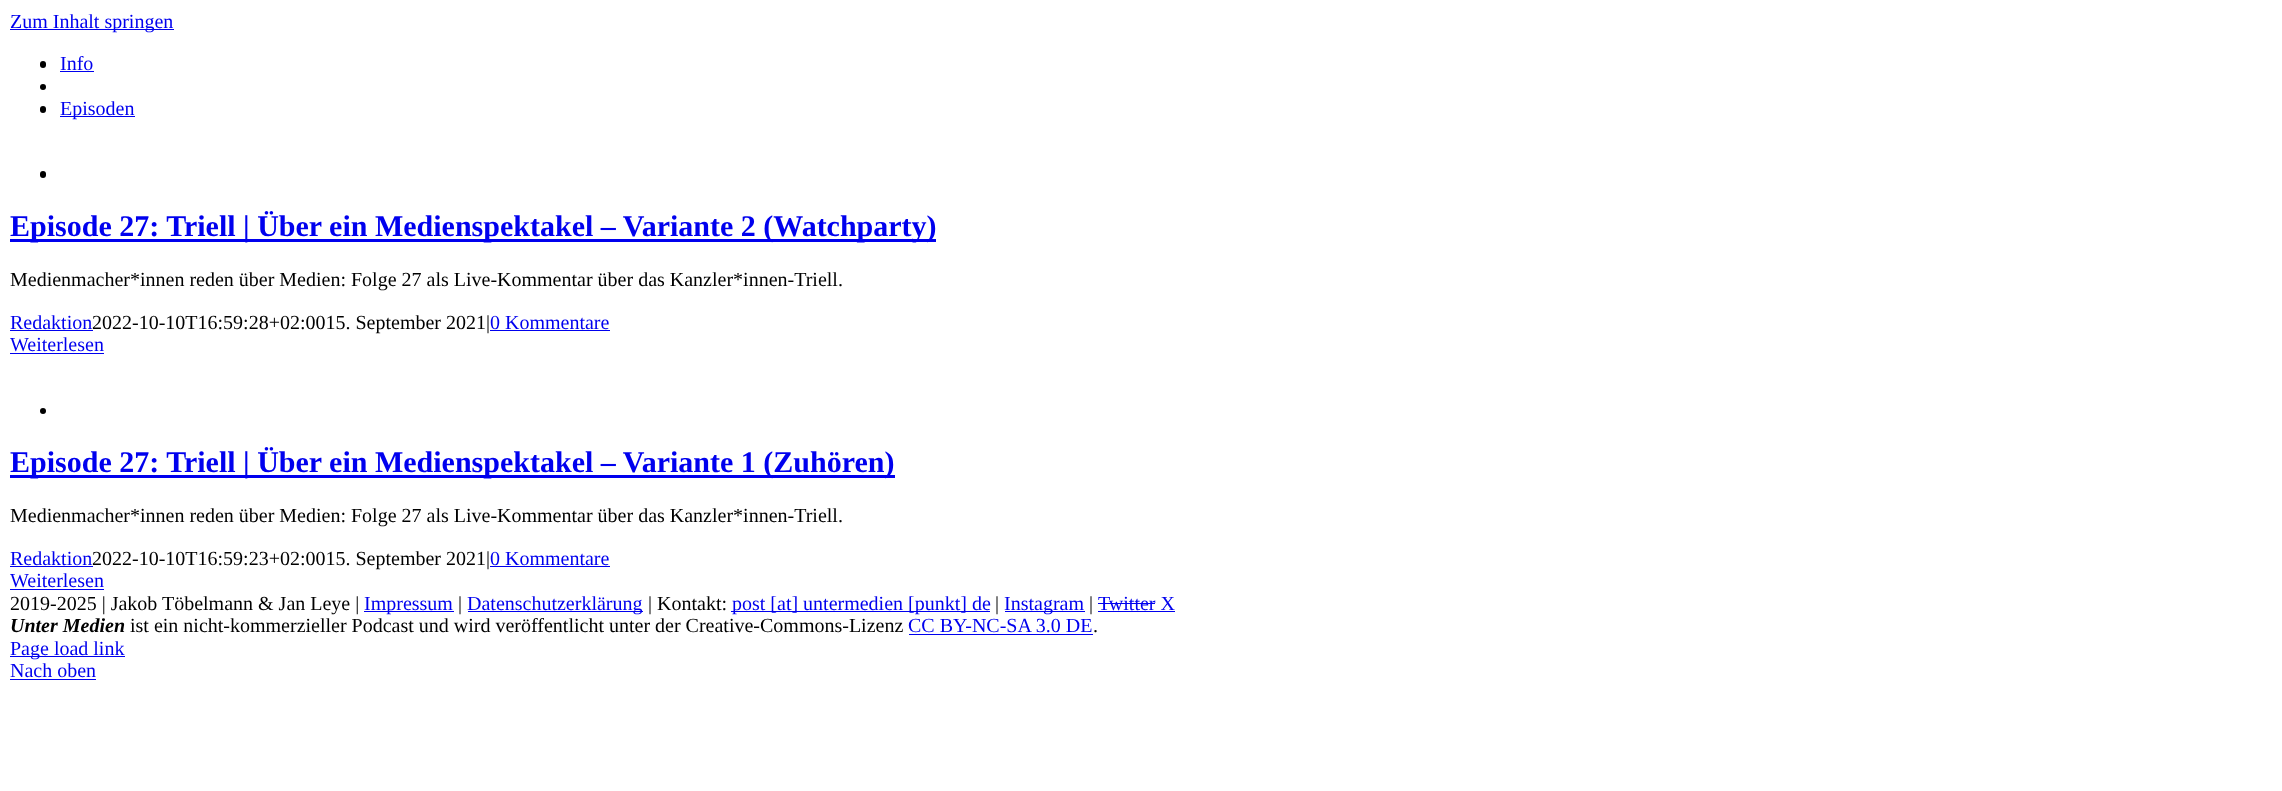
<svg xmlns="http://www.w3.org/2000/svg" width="2282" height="791">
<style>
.a{font:20px Liberation Serif;fill:#00e}
.b{font:bold 30px Liberation Serif;fill:#00e}
.c{font:20px Liberation Serif;fill:#000}
.d{font:italic bold 20px Liberation Serif;fill:#000}
</style>
<rect width="100%" height="100%" fill="#fff"/>
<path fill="#00e" d="M10 29h164v1H10z"/>
<rect fill="#000" x="40" y="61" width="6" height="7" rx="3"/>
<path fill="#00e" d="M60 71h34v1H60z"/>
<circle fill="#000" cx="43" cy="87" r="3"/>
<rect fill="#000" x="40" y="106" width="6" height="7" rx="3"/>
<path fill="#00e" d="M60 116h75v1H60z"/>
<rect fill="#000" x="40" y="171" width="6" height="7" rx="3"/>
<path fill="#00e" d="M10 239h926v3H10z"/>
<path fill="#00e" d="M10 330h83v1H10z"/>
<path fill="#00e" d="M490 330h120v1H490z"/>
<path fill="#00e" d="M10 353h94v1H10z"/>
<circle fill="#000" cx="43" cy="411" r="3"/>
<path fill="#00e" d="M10 475h885v3H10z"/>
<path fill="#00e" d="M10 566h83v1H10z"/>
<path fill="#00e" d="M490 566h120v1H490z"/>
<path fill="#00e" d="M10 589h94v1H10z"/>
<path fill="#00e" d="M364 611h90v1H364z"/>
<path fill="#00e" d="M468 611h175v1H468z"/>
<path fill="#00e" d="M731 611h259v1H731z"/>
<path fill="#00e" d="M1005 611h80v1H1005z"/>
<path fill="#00e" d="M1098 611h77v1H1098z"/>
<path fill="#00e" d="M1098 603h57v1H1098z"/>
<path fill="#00e" d="M909 634h184v1H909z"/>
<path fill="#00e" d="M10 656h115v1H10z"/>
<path fill="#00e" d="M10 679h86v1H10z"/>
<text class="a" x="10" y="28">Zum Inhalt springen</text>
<text class="a" x="60" y="70">Info</text>
<text class="a" x="60" y="115">Episoden</text>
<text class="b" x="10" y="236">Episode 27: Triell | Über ein Medienspektakel – Variante 2 (Watchparty)</text>
<text class="c" x="10" y="286">Medienmacher*innen reden über Medien: Folge 27 als Live-Kommentar über das Kanzler*innen-Triell.</text>
<text class="a" x="10" y="329">Redaktion</text>
<text class="c" x="92" y="329">2022-10-10T16:59:28+02:0015. September 2021|</text>
<text class="a" x="490" y="329">0 Kommentare</text>
<text class="a" x="10" y="351">Weiterlesen</text>
<text class="b" x="10" y="472">Episode 27: Triell | Über ein Medienspektakel – Variante 1 (Zuhören)</text>
<text class="c" x="10" y="522">Medienmacher*innen reden über Medien: Folge 27 als Live-Kommentar über das Kanzler*innen-Triell.</text>
<text class="a" x="10" y="565">Redaktion</text>
<text class="c" x="92" y="565">2022-10-10T16:59:23+02:0015. September 2021|</text>
<text class="a" x="490" y="565">0 Kommentare</text>
<text class="a" x="10" y="587">Weiterlesen</text>
<text class="c" x="10" y="610">2019-2025 | Jakob Töbelmann &amp; Jan Leye |</text>
<text class="a" x="364" y="610">Impressum</text>
<text class="c" x="458" y="610">|</text>
<text class="a" x="467" y="610">Datenschutzerklärung</text>
<text class="c" x="648" y="610">| Kontakt:</text>
<text class="a" x="732" y="610">post [at] untermedien [punkt] de</text>
<text class="c" x="995" y="610">|</text>
<text class="a" x="1004" y="610">Instagram</text>
<text class="c" x="1089" y="610">|</text>
<text class="a" x="1098" y="610">Twitter X</text>
<text class="d" x="10" y="632">Unter Medien</text>
<text class="c" x="130" y="632">ist ein nicht-kommerzieller Podcast und wird veröffentlicht unter der Creative-Commons-Lizenz</text>
<text class="a" x="908" y="632">CC BY-NC-SA 3.0 DE</text>
<text class="c" x="1093" y="632">.</text>
<text class="a" x="10" y="655">Page load link</text>
<text class="a" x="10" y="677">Nach oben</text>
</svg>
